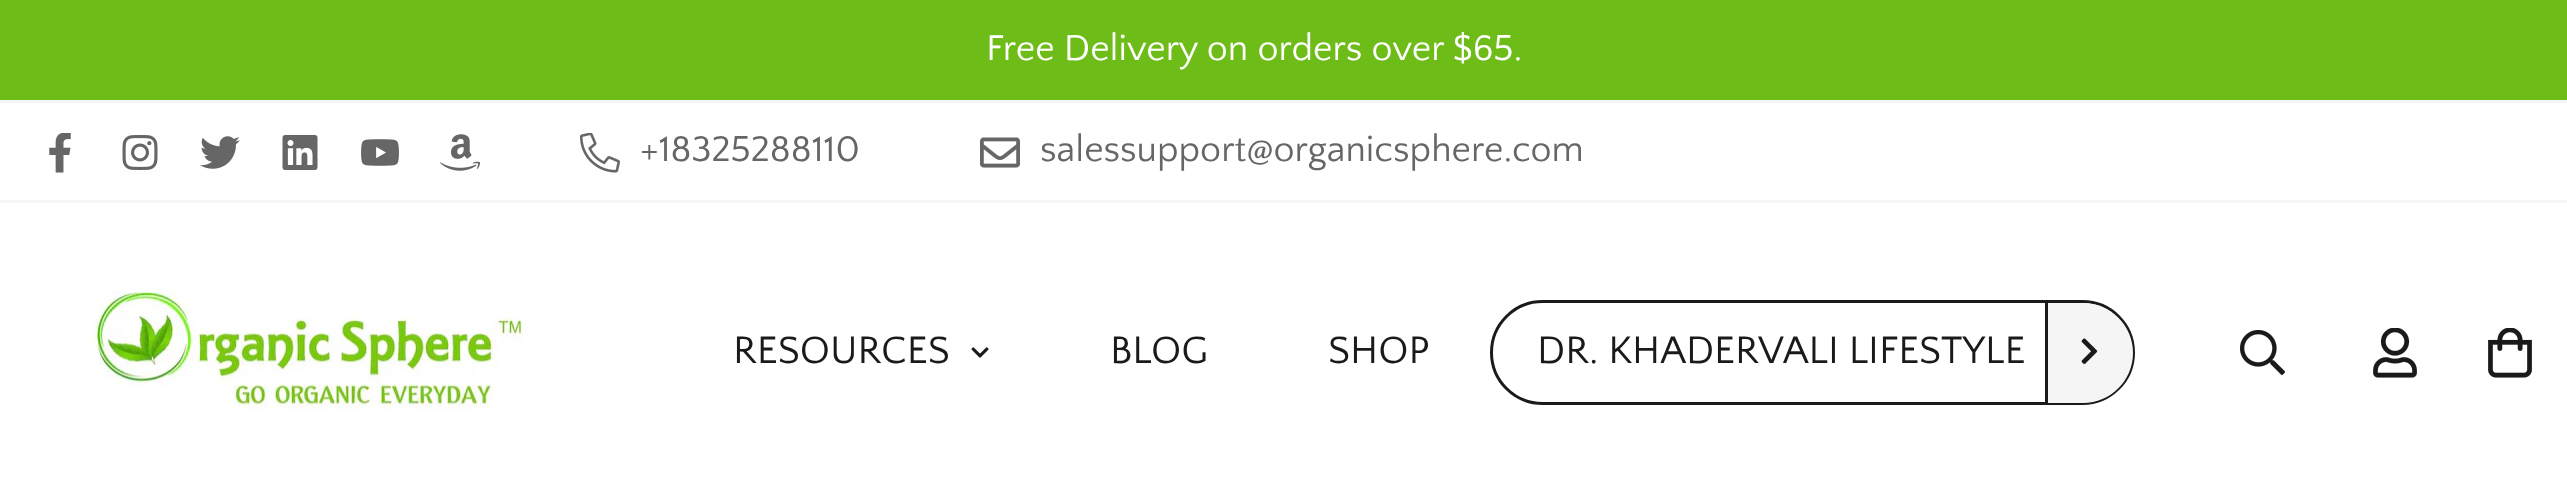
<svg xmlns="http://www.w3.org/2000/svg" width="2567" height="490">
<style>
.a{font:37.5px Quattrocento Sans;fill:#fff}
.b{font:37.5px Quattrocento Sans;fill:#666}
.c{font:40px Quattrocento Sans;fill:#1a1a1a}
</style>
<rect width="100%" height="100%" fill="#fff"/>
<path fill="#6ebc18" d="M0 0h2567v100H0z"/>
<path fill="#f5f5f5" d="M0 100h2567v3H0z"/>
<path fill="#f5f5f5" d="M0 200h2567v3H0z"/>
<image href="1.png" x="49" y="133" width="22" height="40"/>
<image href="2.png" x="122" y="135" width="36" height="35"/>
<image href="3.png" x="200" y="136" width="40" height="33"/>
<image href="4.png" x="282" y="135" width="36" height="35"/>
<image href="5.png" x="361" y="139" width="38" height="27"/>
<image href="6.png" x="440" y="134" width="40" height="37"/>
<image href="7.png" x="580" y="133" width="40" height="40"/>
<image href="8.png" x="980" y="137" width="40" height="31"/>
<image href="9.png" x="92" y="289" width="432" height="122"/>
<image href="10.png" x="971" y="347" width="18" height="11"/>
<rect fill="none" stroke="#1a1a1a" stroke-width="3" x="1491.5" y="301.5" width="642" height="102" rx="51"/>
<path fill="#f5f5f5" d="M2048 303h35c27.5 0 50 22.5 50 50c0 27.5-22.5 50-50 50h-35z"/>
<path fill="#1a1a1a" d="M2045 303h3v100H2045z"/>
<image href="11.png" x="2081" y="338" width="17" height="26"/>
<image href="12.png" x="2240" y="330" width="45" height="45"/>
<image href="13.png" x="2373" y="328" width="44" height="50"/>
<image href="14.png" x="2488" y="328" width="44" height="50"/>
<text class="a" x="986" y="60">Free Delivery on orders over $65.</text>
<text class="b" x="640" y="161">+18325288110</text>
<text class="b" x="1040" y="161">salessupport@organicsphere.com</text>
<text class="c" x="733" y="363">RESOURCES</text>
<text class="c" x="1110" y="363">BLOG</text>
<text class="c" x="1328" y="363">SHOP</text>
<text class="c" x="1537" y="363">DR. KHADERVALI LIFESTYLE</text>
</svg>
